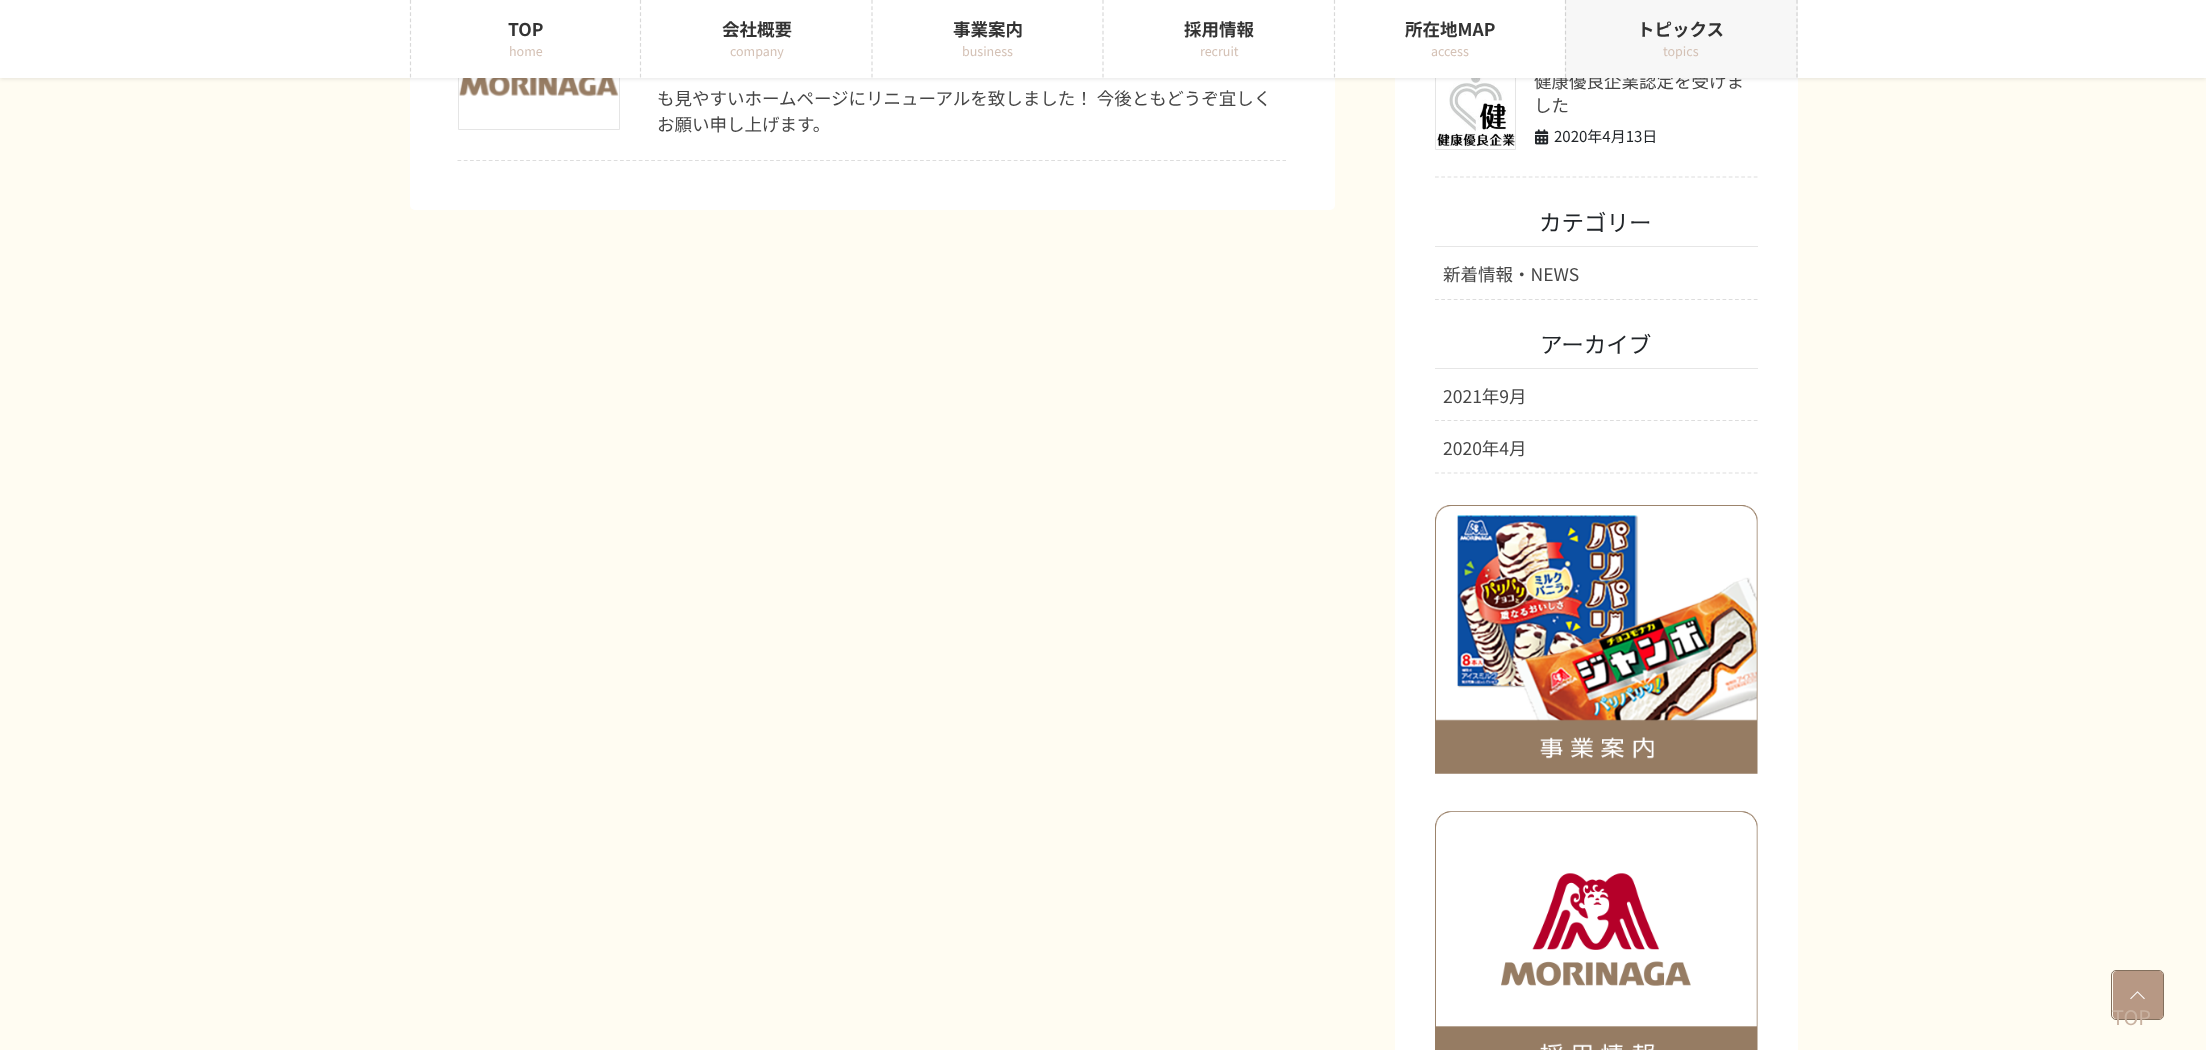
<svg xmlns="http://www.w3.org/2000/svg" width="2206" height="1050">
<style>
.a{font:17.5px Noto Sans JP;fill:#464646}
.b{font:12.5px Noto Sans JP;fill:#d4c1b5}
.c{font:bold 17.5px Noto Sans JP;fill:#333}
.d{font:15px Noto Sans JP;fill:#212529}
.e{font:22.5px Noto Sans JP;fill:#212529}
.f{font:20px Noto Sans JP;fill:#c9b2a1}
</style>
<rect width="100%" height="100%" fill="#fffcf2"/>
<rect fill="#fff" x="410" y="-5" width="925" height="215" rx="5"/>
<path fill="none" stroke="#e5e5e5" d="M458.5 -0.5h161v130H458.5z"/>
<image href="1.png" x="459" y="78" width="160" height="19"/>
<path fill="#fff" d="M1395 78h403v972H1395z"/>
<path fill="none" stroke="#e5e5e5" d="M1435.5 69.5h80v80H1435.5z"/>
<image href="2.png" x="1436" y="78" width="79" height="70"/>
<path fill="#0000001a" filter="blur(2px)" d="M0 1h2206v78H0z"/>
<path fill="none" stroke="#ddd" stroke-width="1.2" stroke-dasharray="3.75 2.5" d="M457.5 160.5h828.5"/>
<path fill="none" stroke="#ddd" stroke-width="1.2" stroke-dasharray="3.75 2.5" d="M1435 177h322.5"/>
<image href="3.png" x="1535" y="129" width="14" height="16"/>
<path fill="#e6e6e6" d="M1435 246h323v1H1435z"/>
<path fill="none" stroke="#ddd" stroke-width="1.2" stroke-dasharray="3.75 2.5" d="M1435 299.5h322.5"/>
<path fill="#e6e6e6" d="M1435 368h323v1H1435z"/>
<path fill="none" stroke="#ddd" stroke-width="1.2" stroke-dasharray="3.75 2.5" d="M1435 420.5h322.5"/>
<path fill="none" stroke="#ddd" stroke-width="1.2" stroke-dasharray="3.75 2.5" d="M1435 473h322.5"/>
<image href="4.png" x="1435" y="505" width="323" height="269"/>
<image href="5.png" x="1435" y="811" width="323" height="239"/>
<rect fill="none" stroke="#826f5d" x="2111.5" y="970.5" width="52" height="49" rx="4.5"/>
<rect fill="#b79884" x="2113" y="971" width="50" height="48" rx="4"/>
<image href="6.png" x="2130" y="991" width="15" height="9"/>
<text class="a" x="657" y="105">も見やすいホームページにリニューアルを致しました！ 今後ともどうぞ宜しく</text>
<text class="a" x="657" y="131">お願い申し上げます。</text>
<text class="a" x="1534" y="88">健康優良企業認定を受けま</text>
<path fill="#fff" d="M0 0h2206v78H0z"/>
<path fill="#f7f7f7" d="M1565 0h233v78H1565z"/>
<text class="b" x="1663" y="56">topics</text>
<text class="c" x="1637" y="36">トピックス</text>
<path fill="none" stroke="#d2d2d2" stroke-width="1.2" stroke-dasharray="3.75 2.4" d="M1565.5 0v77.5"/>
<path fill="none" stroke="#d2d2d2" stroke-width="1.2" stroke-dasharray="3.75 2.4" d="M1797 0v77.5"/>
<text class="b" x="1431" y="56">access</text>
<text class="c" x="1405" y="36">所在地MAP</text>
<path fill="none" stroke="#d9d9d9" stroke-width="1.2" stroke-dasharray="3.75 2.4" d="M1334.5 0v77.5"/>
<text class="b" x="1200" y="56">recruit</text>
<text class="c" x="1184" y="36">採用情報</text>
<path fill="none" stroke="#d9d9d9" stroke-width="1.2" stroke-dasharray="3.75 2.4" d="M1103 0v77.5"/>
<text class="b" x="962" y="56">business</text>
<text class="c" x="953" y="36">事業案内</text>
<path fill="none" stroke="#d9d9d9" stroke-width="1.2" stroke-dasharray="3.75 2.4" d="M872 0v77.5"/>
<text class="b" x="730" y="56">company</text>
<text class="c" x="722" y="36">会社概要</text>
<path fill="none" stroke="#d9d9d9" stroke-width="1.2" stroke-dasharray="3.75 2.4" d="M640.5 0v77.5"/>
<text class="b" x="509" y="56">home</text>
<text class="c" x="508" y="36">TOP</text>
<path fill="none" stroke="#d9d9d9" stroke-width="1.2" stroke-dasharray="3.75 2.4" d="M410.5 0v77.5"/>
<text class="a" x="1534" y="112">した</text>
<text class="d" x="1554" y="142">2020年4月13日</text>
<text class="e" x="1539" y="231">カテゴリー</text>
<text class="a" x="1443" y="281">新着情報・NEWS</text>
<text class="e" x="1540" y="353">アーカイブ</text>
<text class="a" x="1443" y="403">2021年9月</text>
<text class="a" x="1443" y="455">2020年4月</text>
<text class="f" x="2112" y="1025">TOP</text>
</svg>
